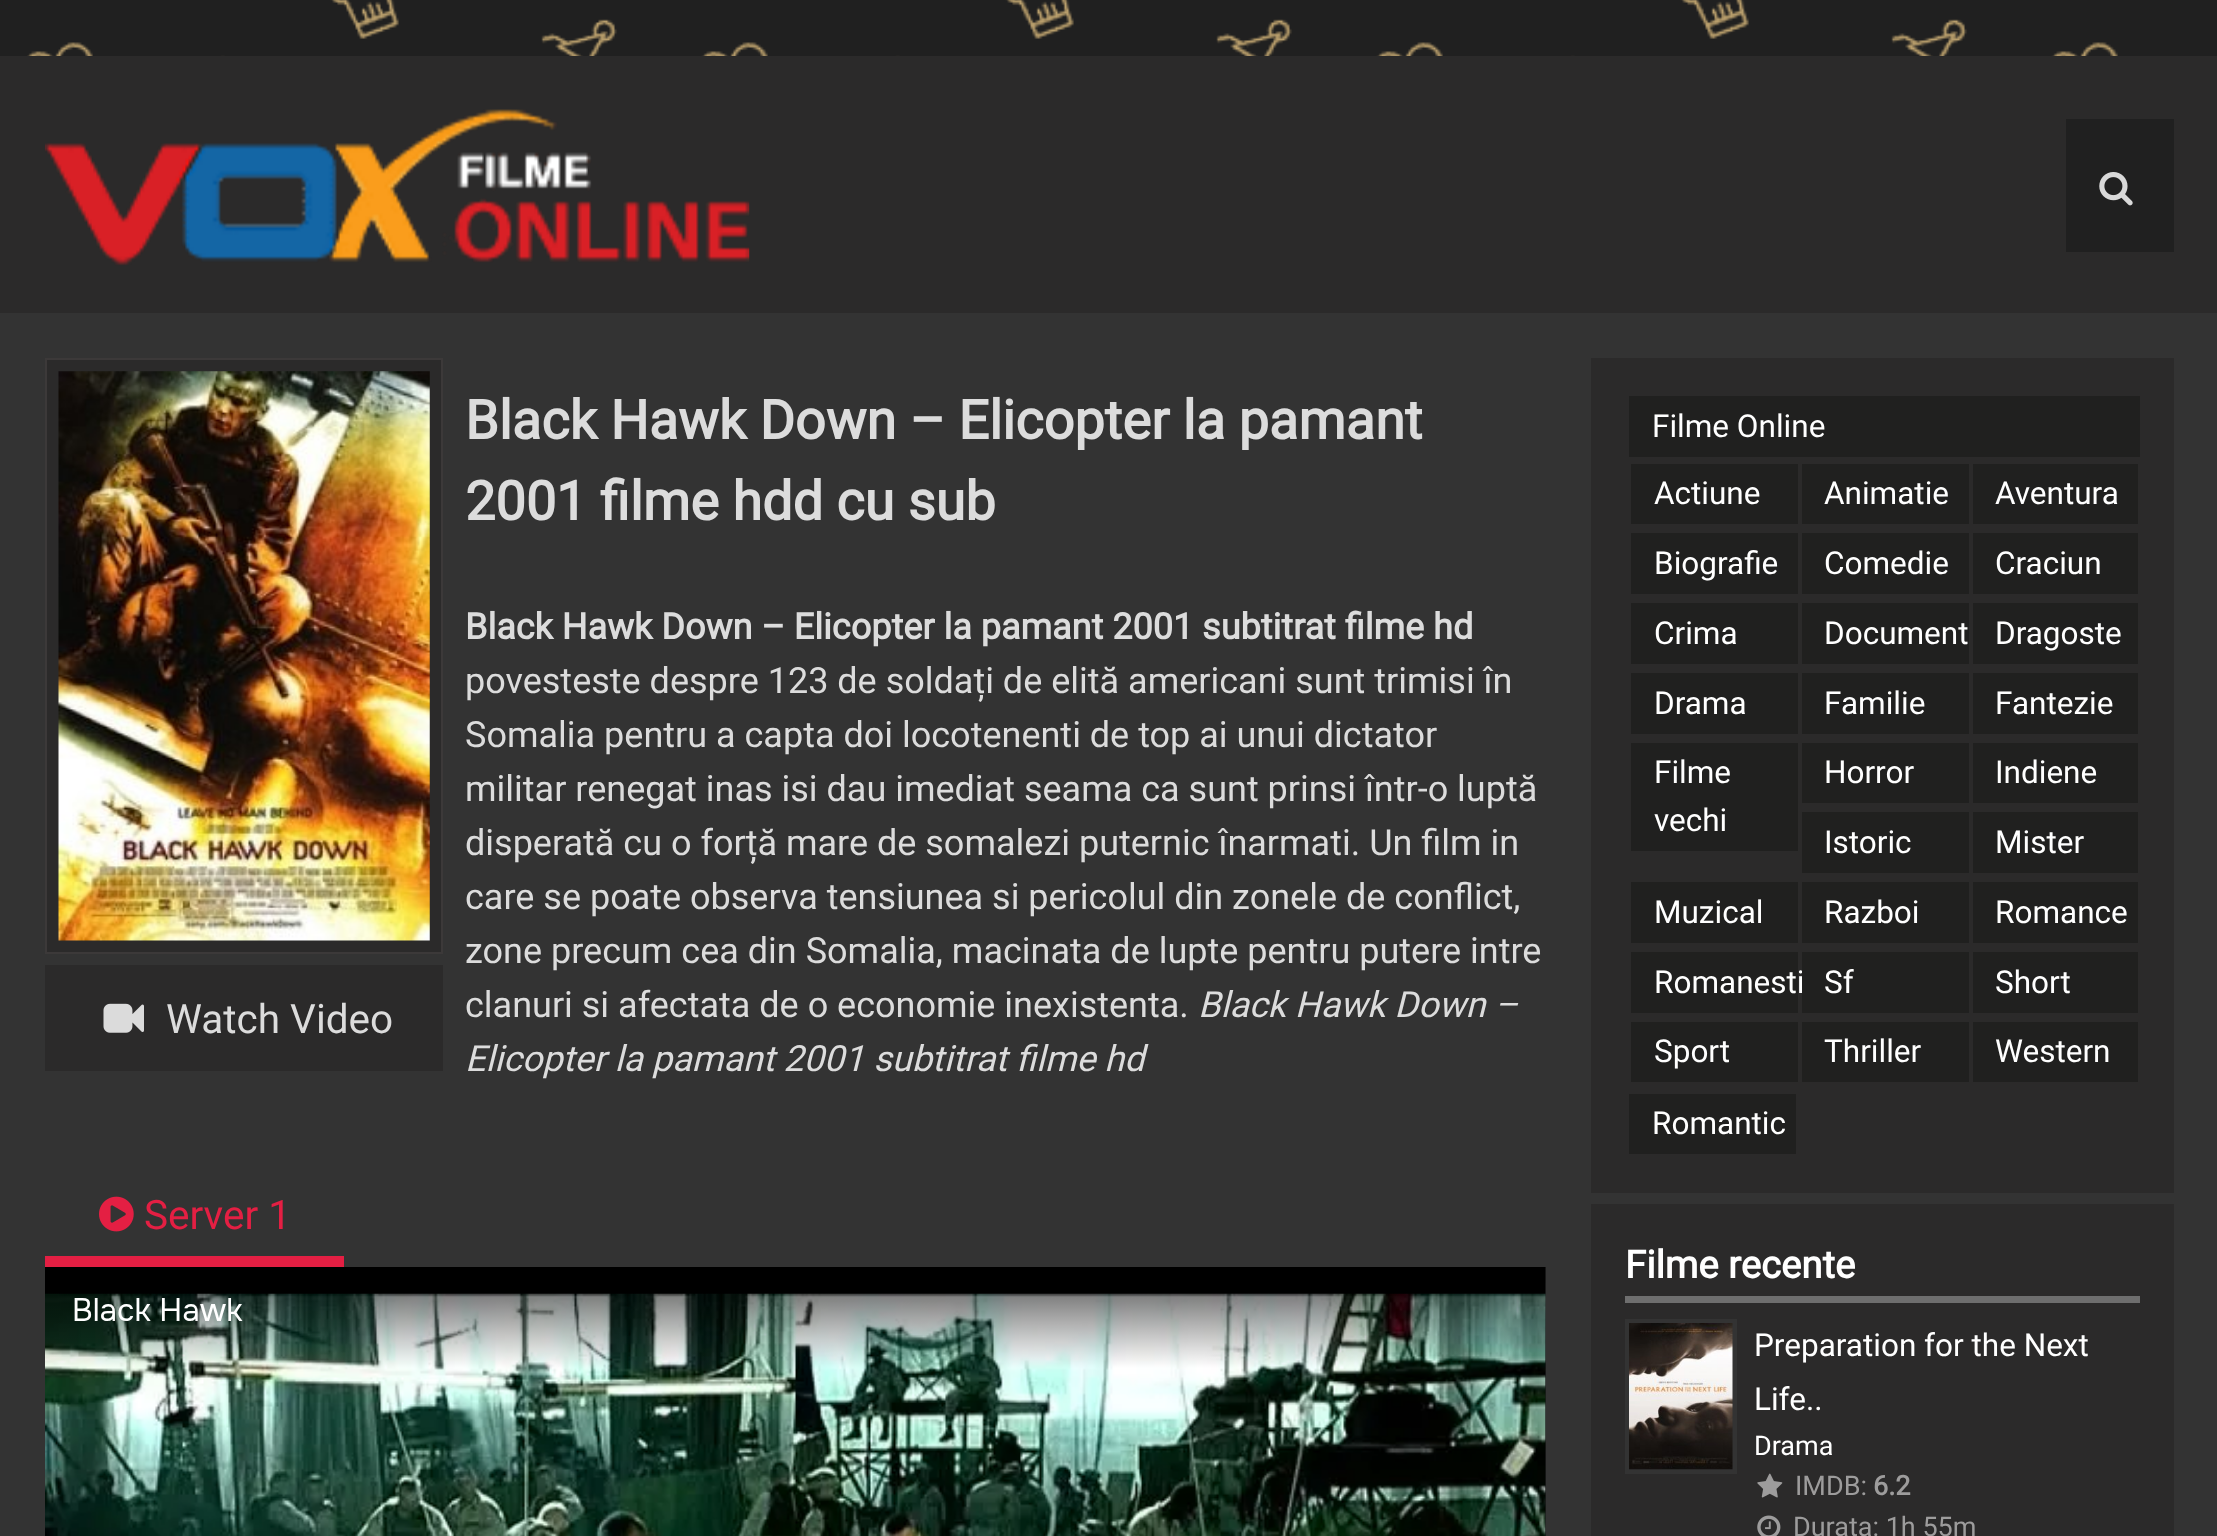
<svg xmlns="http://www.w3.org/2000/svg" width="2217" height="1536">
<style>
.a{font:40.5px Roboto;fill:#dcdcdc}
.b{font:bold 54px Roboto;fill:#dcdcdc}
.c{font:bold 36px Roboto;fill:#dcdcdc}
.d{font:36px Roboto;fill:#dcdcdc}
.e{font:italic 36px Roboto;fill:#dcdcdc}
.f{font:40.5px Roboto;fill:#e41f43}
.g{font:31.5px Roboto;fill:#fff}
.h{font:bold 38.25px Roboto;fill:#fff}
.i{font:27px Roboto;fill:#fff}
.j{font:27px Roboto;fill:#9d9c9c}
.k{font:bold 27px Roboto;fill:#9d9c9c}
</style>
<rect width="100%" height="100%" fill="#202020"/>
<image href="1.png" x="27" y="0" width="2091" height="56"/>
<path fill="#2b2a2a" d="M0 56h2217v257H0z"/>
<image href="2.png" x="45" y="109" width="705" height="157"/>
<path fill="#202020" d="M2066 119h108v133H2066z"/>
<image href="3.png" x="2099" y="172" width="34" height="34"/>
<path fill="#333" d="M0 313h2217v1223H0z"/>
<path fill="#2b2a2a" stroke="#3c3939" stroke-width="2" d="M46 359h396v594H46z"/>
<image href="4.png" x="58" y="371" width="372" height="570"/>
<path fill="#2b2a2a" d="M45 965h398v106H45z"/>
<image href="5.png" x="103" y="1003" width="41" height="30"/>
<path fill="#e41f43" d="M45 1256h299v11H45z"/>
<image href="6.png" x="99" y="1196" width="35" height="36"/>
<image href="7.png" x="45" y="1267" width="1501" height="269"/>
<path fill="#2b2a2a" d="M1591 358h583v835H1591z"/>
<path fill="#20201f" d="M1629 396h511v61H1629z"/>
<path fill="#20201f" d="M1631 464h167v60H1631z"/>
<path fill="#20201f" d="M1802 464h167v60H1802z"/>
<path fill="#20201f" d="M1973 464h165v60H1973z"/>
<path fill="#20201f" d="M1631 533h167v61H1631z"/>
<path fill="#20201f" d="M1802 533h167v61H1802z"/>
<path fill="#20201f" d="M1973 533h165v61H1973z"/>
<path fill="#20201f" d="M1631 603h167v61H1631z"/>
<path fill="#20201f" d="M1802 603h167v61H1802z"/>
<path fill="#20201f" d="M1973 603h165v61H1973z"/>
<path fill="#20201f" d="M1631 673h167v61H1631z"/>
<path fill="#20201f" d="M1802 673h167v61H1802z"/>
<path fill="#20201f" d="M1973 673h165v61H1973z"/>
<path fill="#20201f" d="M1631 743h167v108H1631z"/>
<path fill="#20201f" d="M1802 743h167v60H1802z"/>
<path fill="#20201f" d="M1973 743h165v60H1973z"/>
<path fill="#20201f" d="M1802 812h167v61H1802z"/>
<path fill="#20201f" d="M1973 812h165v61H1973z"/>
<path fill="#20201f" d="M1631 882h167v61H1631z"/>
<path fill="#20201f" d="M1802 882h167v61H1802z"/>
<path fill="#20201f" d="M1973 882h165v61H1973z"/>
<path fill="#20201f" d="M1631 952h167v61H1631z"/>
<path fill="#20201f" d="M1973 952h165v61H1973z"/>
<path fill="#20201f" d="M1631 1022h167v60H1631z"/>
<path fill="#20201f" d="M1802 1022h167v60H1802z"/>
<path fill="#20201f" d="M1973 1022h165v60H1973z"/>
<path fill="#20201f" d="M1629 1094h167v60H1629z"/>
<path fill="#2b2a2a" d="M1591 1204h583v332H1591z"/>
<path fill="#6e6e6e" d="M1625 1296h515v7H1625z"/>
<path fill="none" stroke="#333" stroke-width="5" d="M1627.5 1321.5h107v150H1627.5z"/>
<image href="8.png" x="1629" y="1323" width="104" height="147"/>
<image href="9.png" x="1757" y="1473" width="26" height="25"/>
<image href="10.png" x="1757" y="1515" width="24" height="21"/>
<text class="a" x="166" y="1033">Watch Video</text>
<text class="b" x="465" y="439">Black Hawk Down – Elicopter la pamant</text>
<text class="b" x="465" y="520">2001 filme hdd cu sub</text>
<text class="c" x="465" y="639">Black Hawk Down – Elicopter la pamant 2001 subtitrat filme hd</text>
<text class="d" x="465" y="693">povesteste despre 123 de soldați de elită americani sunt trimisi în</text>
<text class="d" x="465" y="747">Somalia pentru a capta doi locotenenti de top ai unui dictator</text>
<text class="d" x="465" y="801">militar renegat inas isi dau imediat seama ca sunt prinsi într-o luptă</text>
<text class="d" x="465" y="855">disperată cu o forță mare de somalezi puternic înarmati. Un film in</text>
<text class="d" x="465" y="909">care se poate observa tensiunea si pericolul din zonele de conflict,</text>
<text class="d" x="465" y="963">zone precum cea din Somalia, macinata de lupte pentru putere intre</text>
<text class="d" x="465" y="1017">clanuri si afectata de o economie inexistenta.</text>
<text class="e" x="1198" y="1017">Black Hawk Down –</text>
<text class="e" x="465" y="1071">Elicopter la pamant 2001 subtitrat filme hd</text>
<text class="f" x="144" y="1229">Server 1</text>
<text class="g" x="1652" y="437">Filme Online</text>
<text class="g" x="1654" y="504">Actiune</text>
<text class="g" x="1824" y="504">Animatie</text>
<text class="g" x="1995" y="504">Aventura</text>
<text class="g" x="1654" y="574">Biografie</text>
<text class="g" x="1824" y="574">Comedie</text>
<text class="g" x="1995" y="574">Craciun</text>
<text class="g" x="1654" y="644">Crima</text>
<text class="g" x="1824" y="644">Document</text>
<text class="g" x="1995" y="644">Dragoste</text>
<text class="g" x="1654" y="714">Drama</text>
<text class="g" x="1824" y="714">Familie</text>
<text class="g" x="1995" y="714">Fantezie</text>
<text class="g" x="1654" y="783">Filme</text>
<text class="g" x="1654" y="831">vechi</text>
<text class="g" x="1824" y="783">Horror</text>
<text class="g" x="1995" y="783">Indiene</text>
<text class="g" x="1824" y="853">Istoric</text>
<text class="g" x="1995" y="853">Mister</text>
<text class="g" x="1654" y="923">Muzical</text>
<text class="g" x="1824" y="923">Razboi</text>
<text class="g" x="1995" y="923">Romance</text>
<text class="g" x="1654" y="993">Romanesti</text>
<path fill="#20201f" d="M1802 952h167v61H1802z"/>
<text class="g" x="1824" y="993">Sf</text>
<text class="g" x="1995" y="993">Short</text>
<text class="g" x="1654" y="1062">Sport</text>
<text class="g" x="1824" y="1062">Thriller</text>
<text class="g" x="1995" y="1062">Western</text>
<text class="g" x="1652" y="1134">Romantic</text>
<text class="h" x="1625" y="1278">Filme recente</text>
<text class="g" x="1754" y="1356">Preparation for the Next</text>
<text class="g" x="1754" y="1410">Life..</text>
<text class="i" x="1754" y="1455">Drama</text>
<text class="j" x="1795" y="1495">IMDB:</text>
<text class="k" x="1873" y="1495">6.2</text>
<text class="j" x="1793" y="1536">Durata: 1h 55m</text>
</svg>
